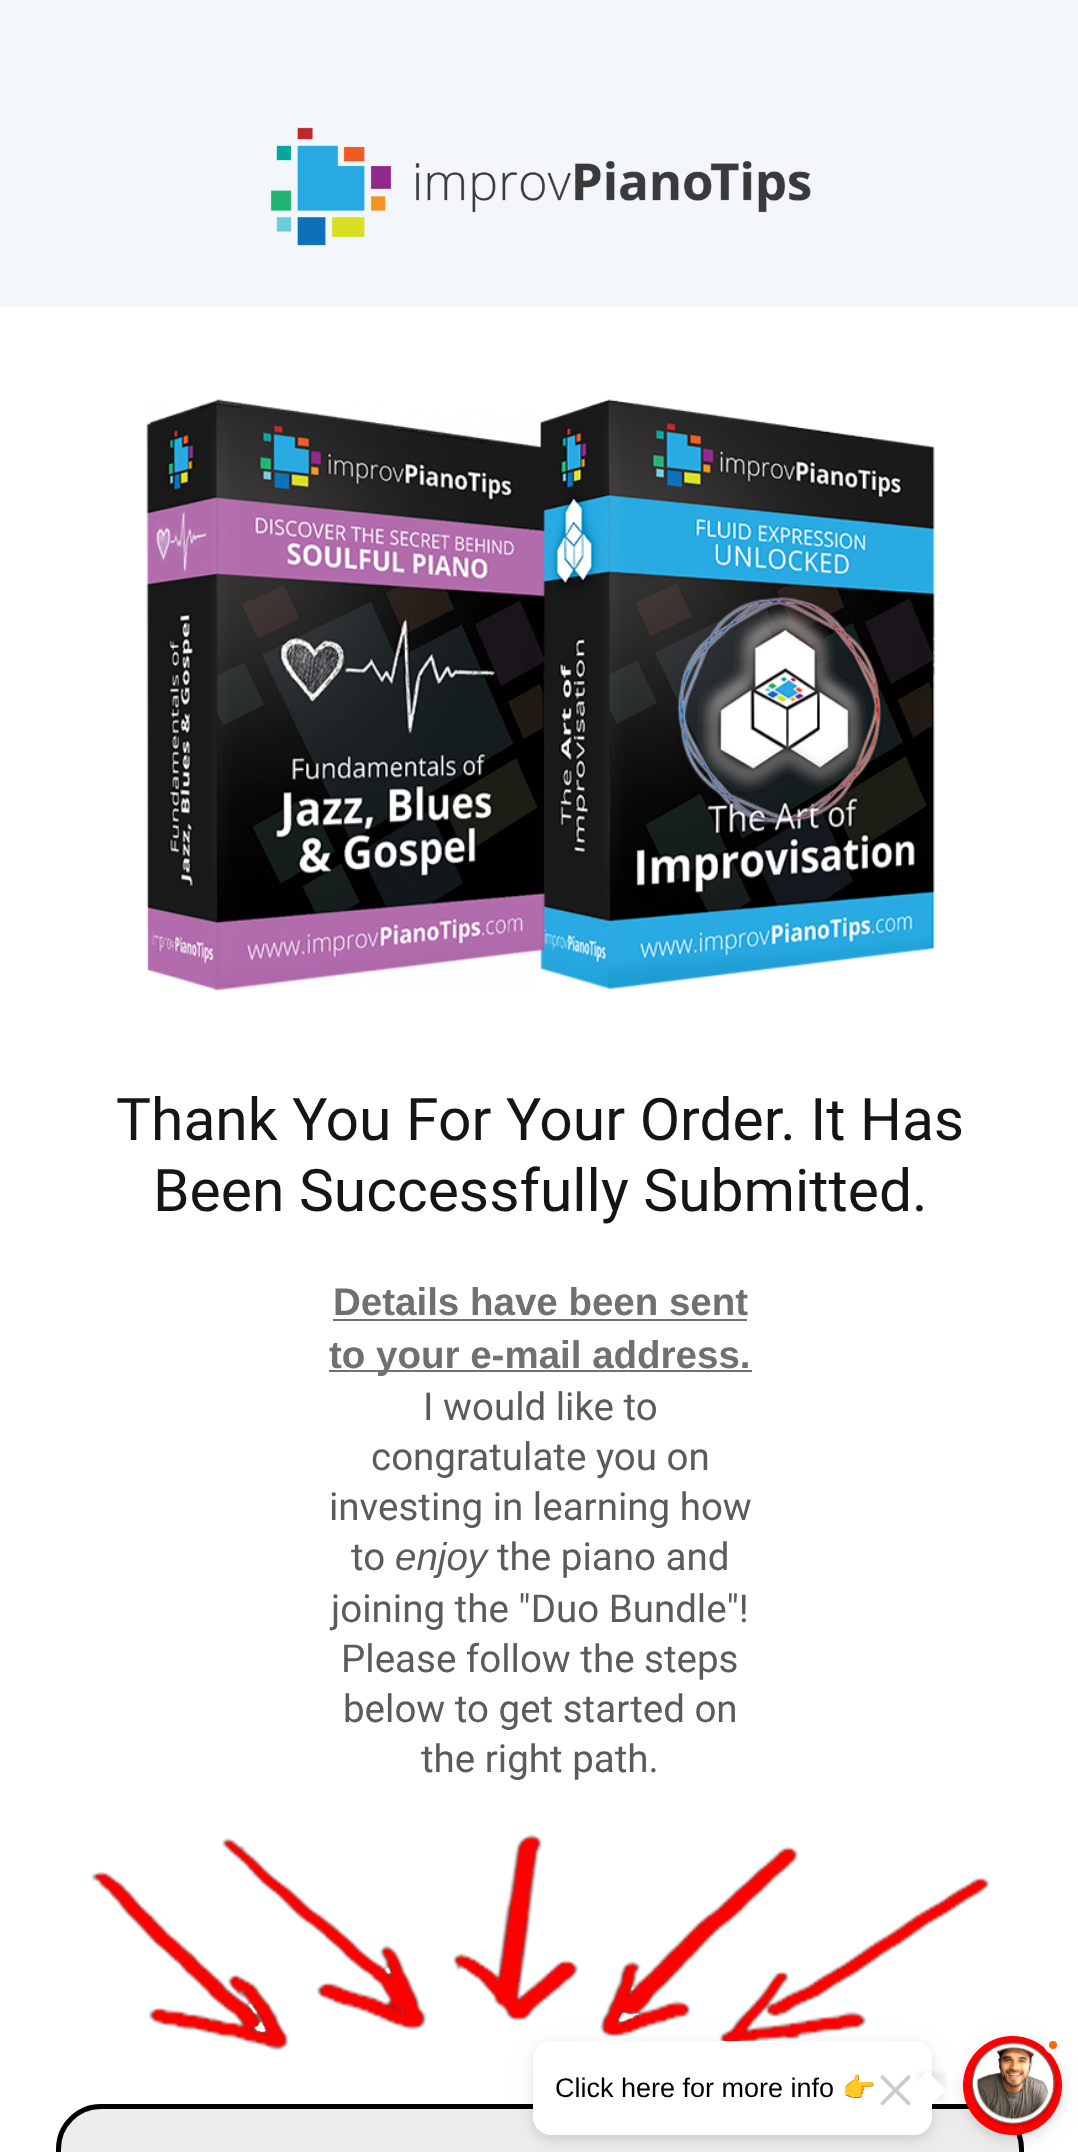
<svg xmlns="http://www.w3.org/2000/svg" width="1078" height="2152">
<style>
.a{font:58.75px Roboto;fill:#151515}
.b{font:bold 38.5px Liberation Sans;fill:#717070}
.c{font:38.5px Roboto;fill:#5b5b5b}
.d{font:italic 38.5px Liberation Sans;fill:#5b5b5b}
.e{font:27px Liberation Sans;fill:#000}
.f{font:27px Noto Color Emoji;fill:#000}
</style>
<rect width="100%" height="100%" fill="#f3f6fa"/>
<image href="1.png" x="270" y="127" width="541" height="119"/>
<path fill="#fff" d="M0 306h1078v1846H0z"/>
<image href="2.png" x="146" y="399" width="789" height="592"/>
<path fill="#717070" d="M333 1319h414v2H333z"/>
<path fill="#717070" d="M329 1370h423v2H329z"/>
<image href="3.png" x="90" y="1834" width="900" height="217"/>
<path fill="#ededed" d="M101 2104h878c25 0 45 20 45 45v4h-968v-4c0-25 20-45 45-45z"/>
<rect fill="none" stroke="#000" stroke-width="5" x="58.5" y="2106.5" width="963" height="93" rx="42.5"/>
<rect fill="#00000014" filter="blur(4.5px)" x="963" y="2041" width="99" height="99" rx="49.5"/>
<rect fill="#0000000f" filter="blur(13.5px)" x="963" y="2041" width="99" height="99" rx="49.5"/>
<circle fill="#f00" cx="1012.5" cy="2085.5" r="49.5"/>
<image href="5.png" x="970" y="2040" width="87" height="87"/>
<rect fill="#0000000f" filter="blur(13.5px)" x="533" y="2045" width="399" height="95" rx="18"/>
<rect fill="#00000014" filter="blur(4.5px)" x="533" y="2045" width="399" height="95" rx="18"/>
<rect fill="#fff" x="533" y="2041" width="399" height="94" rx="18"/>
<path fill="#0000000f" filter="blur(2.5px)" d="M918 2072h27v27H918z"/>
<path fill="#fff" d="M927 2071l19 19l-19 19.5l-19-19.5z"/>
<image href="4.png" x="880" y="2075" width="31" height="31"/>
<circle fill="#fa6b05" stroke="#fff" stroke-width="5" cx="1053" cy="2045" r="6.5"/>
<text class="a" x="116" y="1140">Thank You For Your Order. It Has</text>
<text class="a" x="153" y="1211">Been Successfully Submitted.</text>
<text class="b" x="333" y="1315">Details have been sent</text>
<text class="b" x="329" y="1368">to your e-mail address.</text>
<text class="c" x="423" y="1420">I would like to</text>
<text class="c" x="371" y="1470">congratulate you on</text>
<text class="c" x="329" y="1520">investing in learning how</text>
<text class="c" x="351" y="1570">to</text>
<text class="d" x="395" y="1570">enjoy</text>
<text class="c" x="497" y="1570">the piano and</text>
<text class="c" x="331" y="1622">joining the "Duo Bundle"!</text>
<text class="c" x="341" y="1672">Please follow the steps</text>
<text class="c" x="343" y="1722">below to get started on</text>
<text class="c" x="421" y="1772">the right path.</text>
<text class="e" x="555" y="2097">Click here for more info</text>
<text class="f" x="842" y="2097">👉</text>
</svg>
